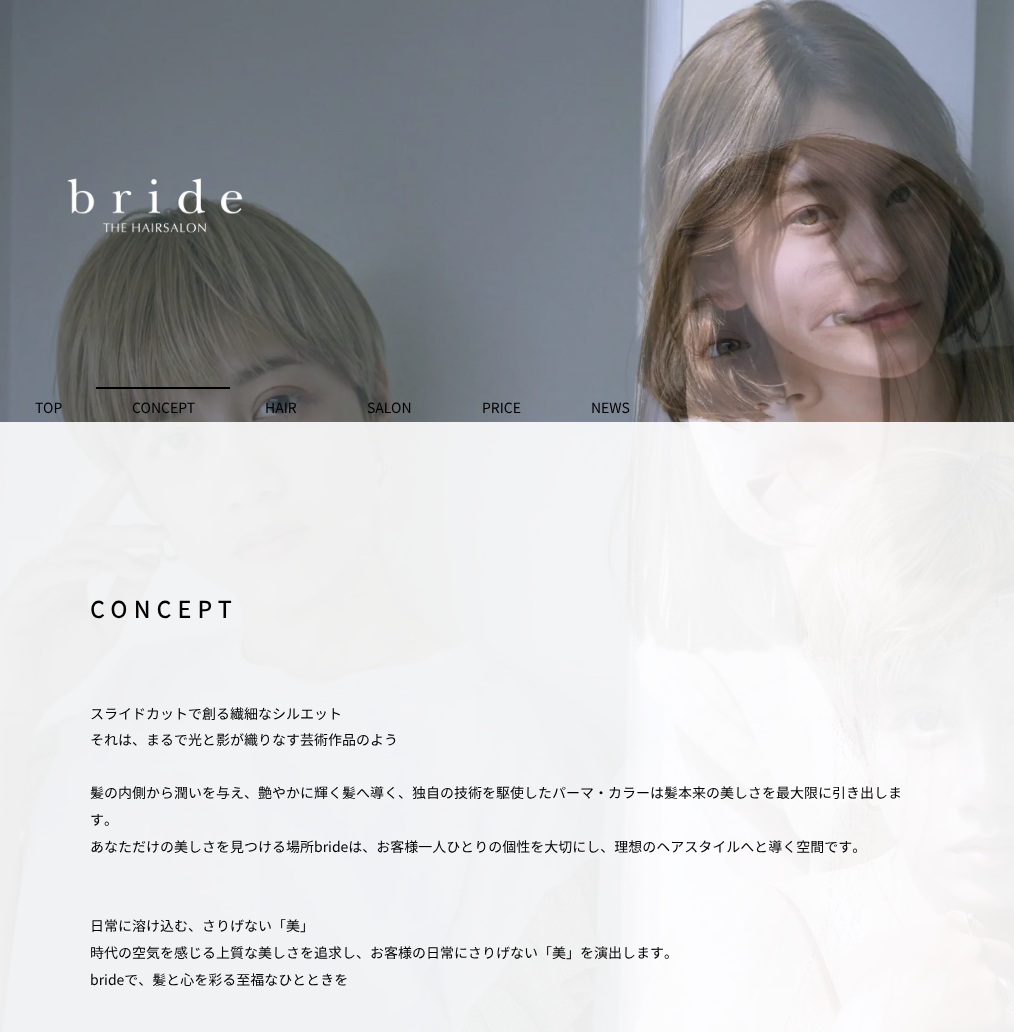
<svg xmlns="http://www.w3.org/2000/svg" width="1014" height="1032">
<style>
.a{font:14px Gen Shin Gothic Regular;fill:#000}
.b{font:bold 22.5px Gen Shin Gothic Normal;letter-spacing:6.75px;fill:#000}
</style>
<rect width="100%" height="100%" fill="#fff"/>
<image href="1.png" x="0" y="0" width="1014" height="1032"/>
<image href="2.png" x="120" y="136" width="793" height="795"/>
<image href="3.png" x="0" y="0" width="1014" height="1032"/>
<image href="4.png" x="67" y="178" width="176" height="55"/>
<path fill="#000" d="M96 387h134v2H96z"/>
<path fill="#ffffffe6" d="M0 422h1014v610H0z"/>
<text class="a" x="35" y="413">TOP</text>
<text class="a" x="132" y="413">CONCEPT</text>
<text class="a" x="265" y="413">HAIR</text>
<text class="a" x="367" y="413">SALON</text>
<text class="a" x="482" y="413">PRICE</text>
<text class="a" x="591" y="413">NEWS</text>
<text class="b" x="90" y="618">CONCEPT</text>
<text class="a" x="90" y="719">スライドカットで創る繊細なシルエット</text>
<text class="a" x="90" y="745">それは、まるで光と影が織りなす芸術作品のよう</text>
<text class="a" x="90" y="798">髪の内側から潤いを与え、艶やかに輝く髪へ導く、独自の技術を駆使したパーマ・カラーは髪本来の美しさを最大限に引き出しま</text>
<text class="a" x="90" y="825">す。</text>
<text class="a" x="90" y="852">あなただけの美しさを見つける場所brideは、お客様一人ひとりの個性を大切にし、理想のヘアスタイルへと導く空間です。</text>
<text class="a" x="90" y="931">日常に溶け込む、さりげない「美」</text>
<text class="a" x="90" y="958">時代の空気を感じる上質な美しさを追求し、お客様の日常にさりげない「美」を演出します。</text>
<text class="a" x="90" y="985">brideで、髪と心を彩る至福なひとときを</text>
</svg>
